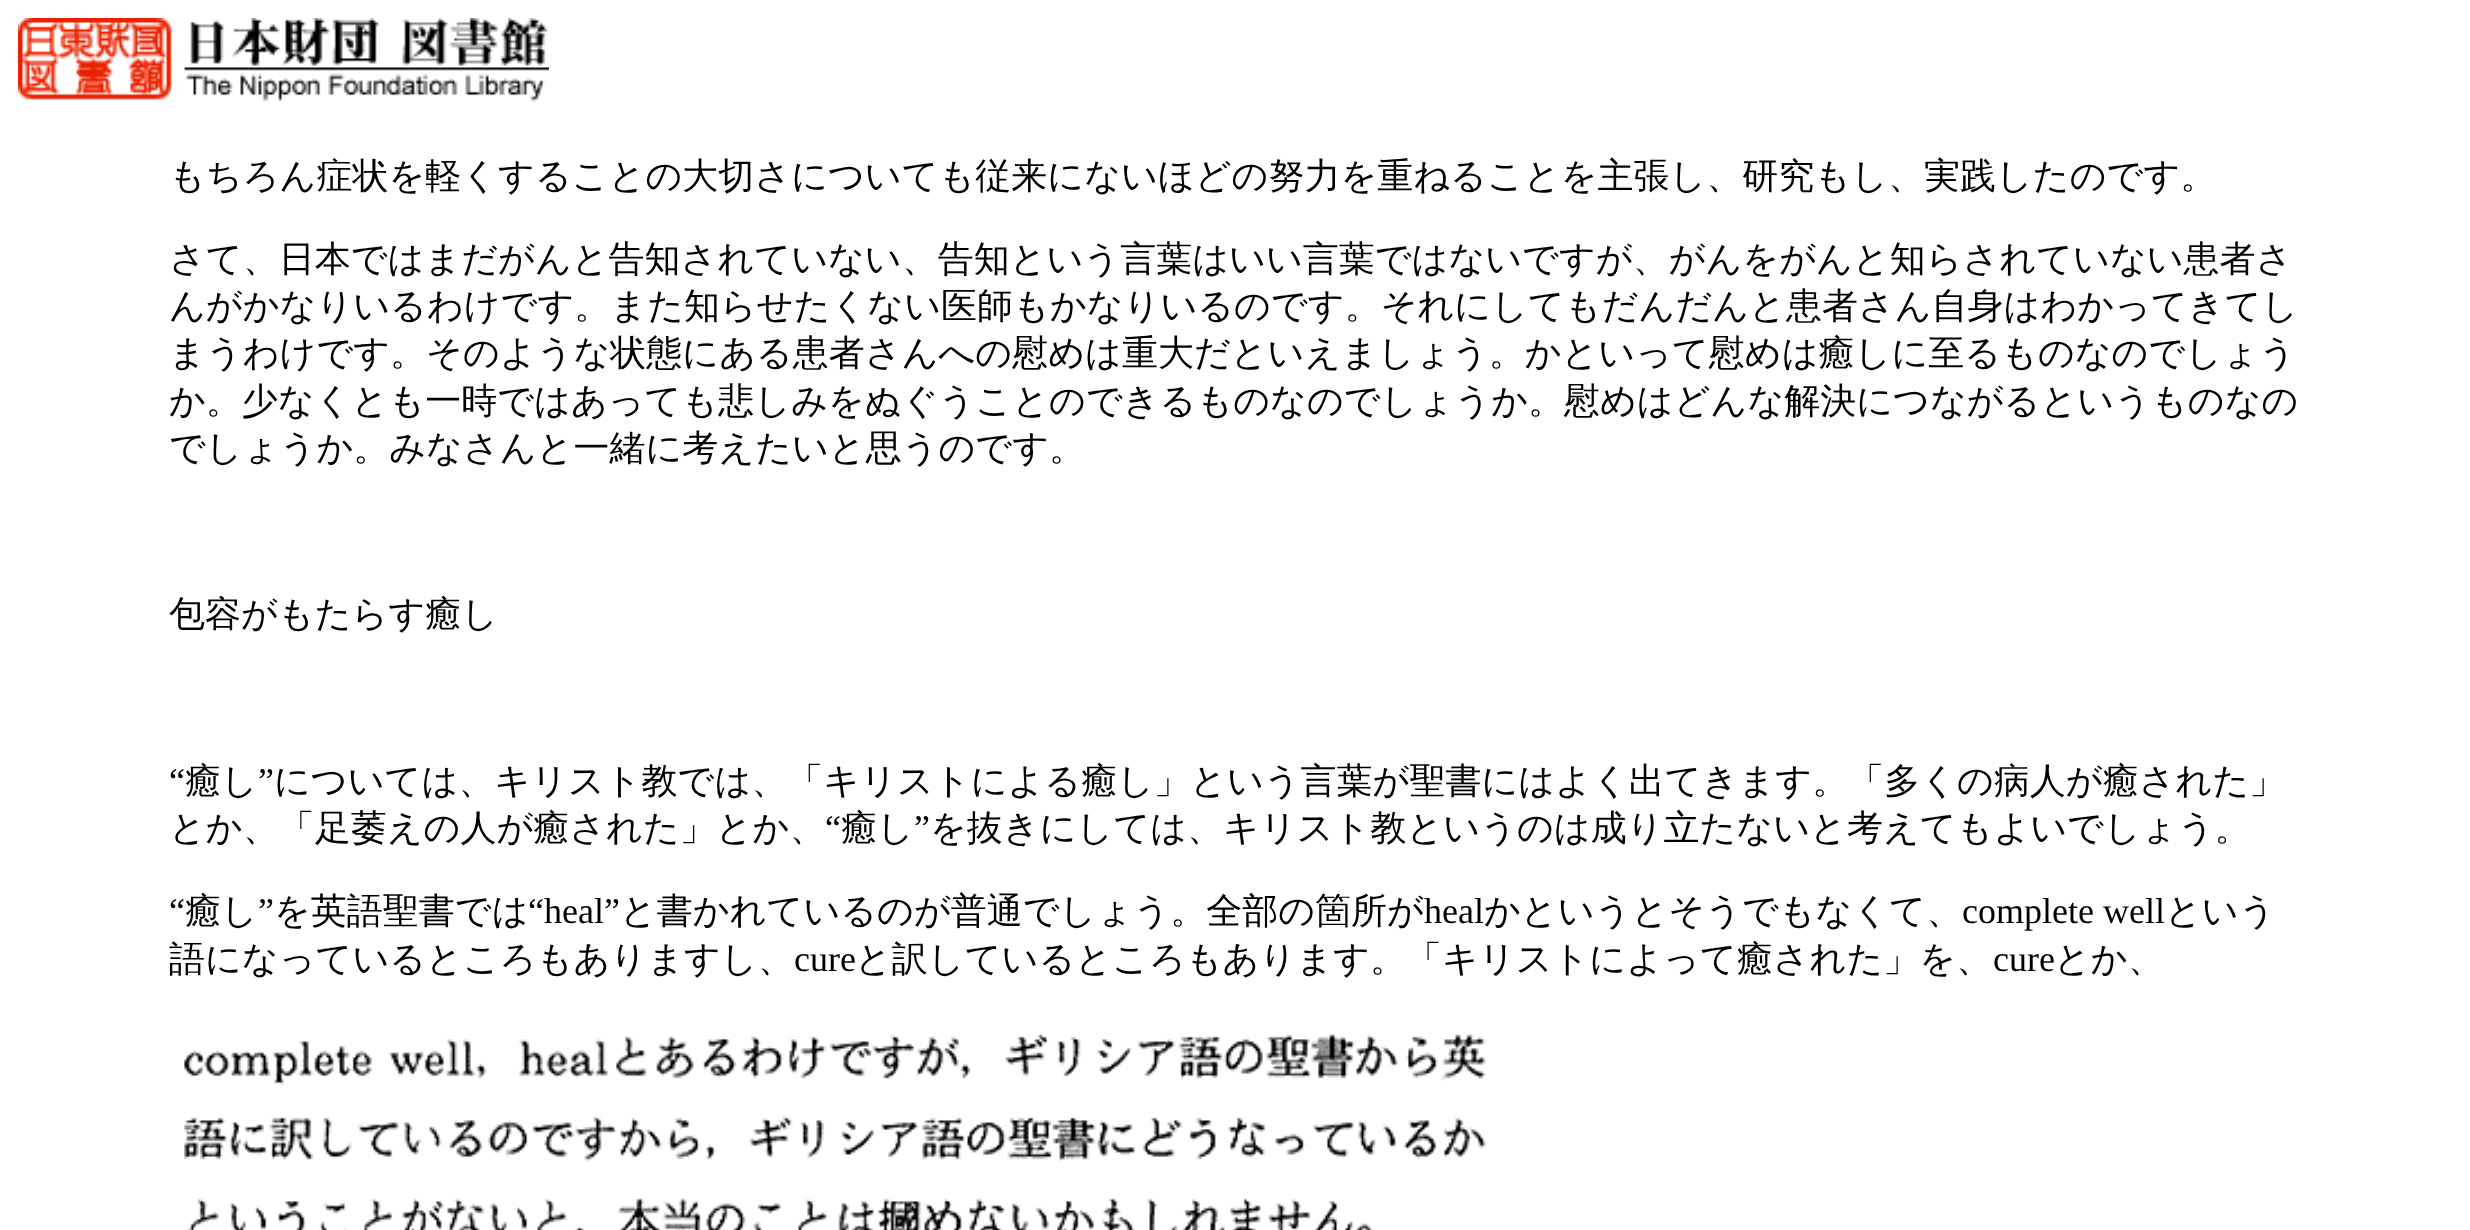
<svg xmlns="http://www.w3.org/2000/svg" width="2470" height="1230">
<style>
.a{font:500 36px WenQuanYi Zen Hei;fill:#000}
.b{font:36px Liberation Serif;fill:#000}
</style>
<rect width="100%" height="100%" fill="#fff"/>
<image href="1.png" x="18" y="18" width="531" height="84"/>
<image href="2.png" x="184" y="1034" width="1302" height="196"/>
<text class="a" x="169" y="188">もちろん症状を軽くすることの大切さについても従来にないほどの努力を重ねることを主張し、研究もし、実践したのです。</text>
<text class="a" x="169" y="271">さて、日本ではまだがんと告知されていない、告知という言葉はいい言葉ではないですが、がんをがんと知らされていない患者さ</text>
<text class="a" x="169" y="318">んがかなりいるわけです。また知らせたくない医師もかなりいるのです。それにしてもだんだんと患者さん自身はわかってきてし</text>
<text class="a" x="169" y="365">まうわけです。そのような状態にある患者さんへの慰めは重大だといえましょう。かといって慰めは癒しに至るものなのでしょう</text>
<text class="a" x="169" y="413">か。少なくとも一時ではあっても悲しみをぬぐうことのできるものなのでしょうか。慰めはどんな解決につながるというものなの</text>
<text class="a" x="169" y="460">でしょうか。みなさんと一緒に考えたいと思うのです。</text>
<text class="a" x="169" y="626">包容がもたらす癒し</text>
<text class="b" x="169" y="793">“</text>
<text class="a" x="185" y="793">癒し</text>
<text class="b" x="258" y="793">”</text>
<text class="a" x="274" y="793">については、キリスト教では、「キリストによる癒し」という言葉が聖書にはよく出てきます。「多くの病人が癒された」</text>
<text class="a" x="169" y="840">とか、「足萎えの人が癒された」とか、</text>
<text class="b" x="825" y="840">“</text>
<text class="a" x="841" y="840">癒し</text>
<text class="b" x="914" y="840">”</text>
<text class="a" x="930" y="840">を抜きにしては、キリスト教というのは成り立たないと考えてもよいでしょう。</text>
<text class="b" x="169" y="923">“</text>
<text class="a" x="185" y="923">癒し</text>
<text class="b" x="258" y="923">”</text>
<text class="a" x="274" y="923">を英語聖書では</text>
<text class="b" x="528" y="923">“heal”</text>
<text class="a" x="620" y="923">と書かれているのが普通でしょう。全部の箇所が</text>
<text class="b" x="1424" y="923">heal</text>
<text class="a" x="1484" y="923">かというとそうでもなくて、</text>
<text class="b" x="1962" y="923">complete well</text>
<text class="a" x="2165" y="923">という</text>
<text class="a" x="169" y="971">語になっているところもありますし、</text>
<text class="b" x="794" y="971">cure</text>
<text class="a" x="855" y="971">と訳しているところもあります。「キリストによって癒された」を、</text>
<text class="b" x="1993" y="971">cure</text>
<text class="a" x="2054" y="971">とか、</text>
</svg>
